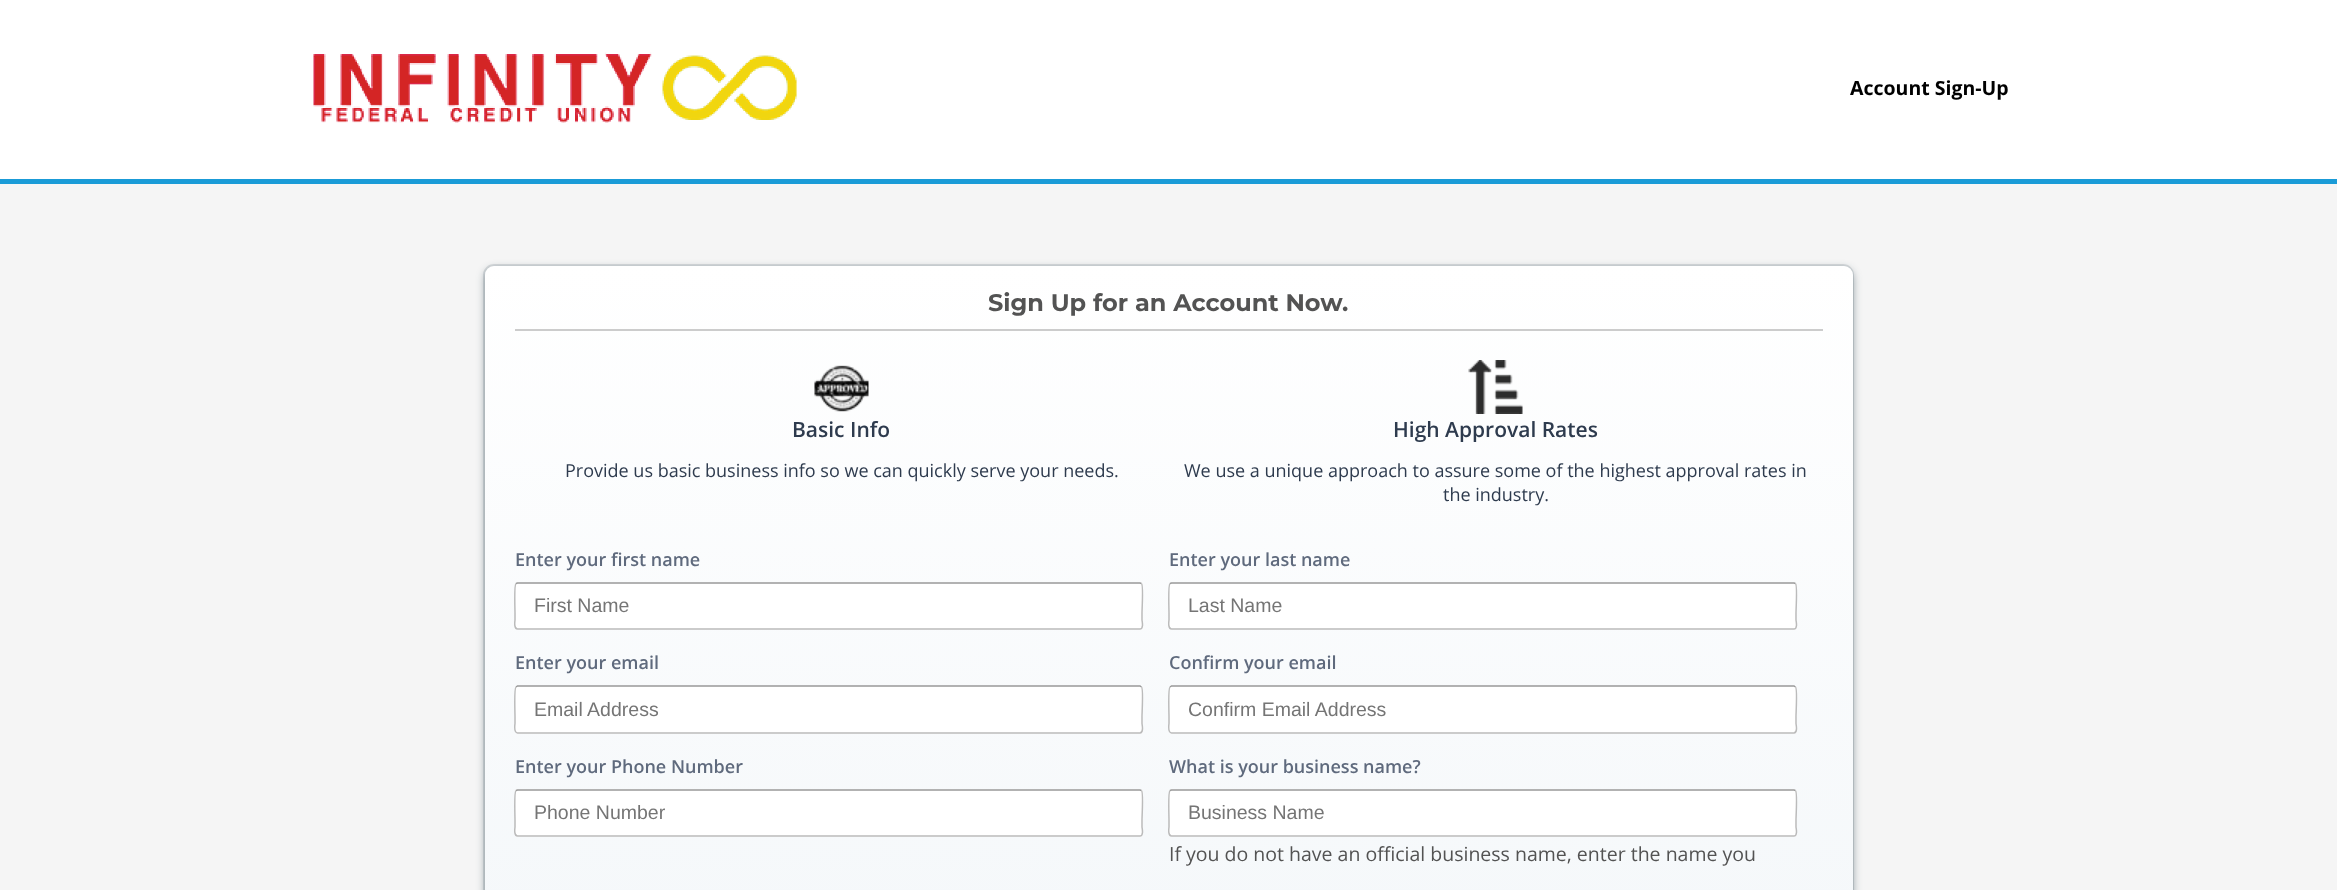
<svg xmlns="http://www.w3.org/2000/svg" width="2337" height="890">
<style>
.a{font:bold 19.5px Open Sans;fill:#000}
.b{font:bold 24px Montserrat;fill:#535353}
.c{font:600 21px Open Sans;fill:#2e3b4e}
.d{font:18px Open Sans;fill:#2e3b4e}
.e{font:600 18px Open Sans;fill:#5f6a7d}
.f{font:19.5px Liberation Sans;fill:#757575}
.g{font:19.5px Open Sans;fill:#535353}
</style>
<defs>
<linearGradient id="g1" gradientUnits="userSpaceOnUse" x1="1169" y1="265" x2="1169" y2="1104"><stop offset="0" stop-color="#fff"/><stop offset="1" stop-color="#f2f6f9"/></linearGradient>
</defs>
<rect width="100%" height="100%" fill="#f5f5f5"/>
<path fill="#fff" d="M0 0h2337v179H0z"/>
<path fill="#1a9bd7" d="M0 179h2337v5H0z"/>
<image href="1.png" x="313" y="52" width="484" height="71"/>
<rect fill="#0e293970" filter="blur(4px)" x="485" y="269" width="1368" height="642" rx="9"/>
<rect fill="none" stroke="#0e29391f" stroke-width="2" x="484" y="265" width="1369" height="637" rx="10"/>
<rect fill="url(#g1)" x="485" y="266" width="1368" height="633" rx="9"/>
<path fill="#ccc" d="M515 329h1308v2H515z"/>
<image href="2.png" x="814" y="365" width="55" height="47"/>
<image href="3.png" x="1468" y="360" width="55" height="54"/>
<rect fill="#fff" x="515" y="582" width="628" height="48" rx="3"/>
<path fill="none" stroke="#999" stroke-width="1.5" d="M516 583.5l1.5-.5h622.5l1.5 .5"/>
<path fill="none" stroke="#bbb" stroke-width="1.5" d="M1141.5 583.5c2 1.5 .5 25.5 .5 29.5v7c0 .5 2 9-2 9h-622.5c-4 0-2.5-8.5-2.5-9v-7c0-4-1-28 1-29.5"/>
<rect fill="#fff" x="1169" y="582" width="628" height="48" rx="3"/>
<path fill="none" stroke="#999" stroke-width="1.5" d="M1170 583.5l1.5-.5h622.5l1.5 .5"/>
<path fill="none" stroke="#bbb" stroke-width="1.5" d="M1795.5 583.5c2 1.5 .5 25.5 .5 29.5v7c0 .5 2 9-2 9h-622.5c-4 0-2.5-8.5-2.5-9v-7c0-4-1-28 1-29.5"/>
<rect fill="#fff" x="515" y="686" width="628" height="48" rx="3"/>
<path fill="none" stroke="#999" stroke-width="1.5" d="M516 687l1.5-1h622.5l1.5 1"/>
<path fill="none" stroke="#bbb" stroke-width="1.5" d="M1141.5 687c2 1.5 .5 25.5 .5 29.5v7c0 .5 2 9-2 9.5h-622.5c-4-.5-2.5-9-2.5-9.5v-7c0-4-1-28 1-29.5"/>
<rect fill="#fff" x="1169" y="686" width="628" height="48" rx="3"/>
<path fill="none" stroke="#999" stroke-width="1.5" d="M1170 687l1.5-1h622.5l1.5 1"/>
<path fill="none" stroke="#bbb" stroke-width="1.5" d="M1795.5 687c2 1.5 .5 25.5 .5 29.5v7c0 .5 2 9-2 9.5h-622.5c-4-.5-2.5-9-2.5-9.5v-7c0-4-1-28 1-29.5"/>
<rect fill="#fff" x="515" y="789" width="628" height="48" rx="3"/>
<path fill="none" stroke="#999" stroke-width="1.5" d="M516 790.5l1.5-.5h622.5l1.5 .5"/>
<path fill="none" stroke="#bbb" stroke-width="1.5" d="M1141.5 790.5c2 1.5 .5 25.5 .5 29.5v7c0 .5 2 9-2 9h-622.5c-4 0-2.5-8.5-2.5-9v-7c0-4-1-28 1-29.5"/>
<rect fill="#fff" x="1169" y="789" width="628" height="48" rx="3"/>
<path fill="none" stroke="#999" stroke-width="1.5" d="M1170 790.5l1.5-.5h622.5l1.5 .5"/>
<path fill="none" stroke="#bbb" stroke-width="1.5" d="M1795.5 790.5c2 1.5 .5 25.5 .5 29.5v7c0 .5 2 9-2 9h-622.5c-4 0-2.5-8.5-2.5-9v-7c0-4-1-28 1-29.5"/>
<text class="a" x="1850" y="95">Account Sign-Up</text>
<text class="b" x="988" y="311">Sign Up for an Account Now.</text>
<text class="c" x="792" y="437">Basic Info</text>
<text class="d" x="565" y="477">Provide us basic business info so we can quickly serve your needs.</text>
<text class="c" x="1393" y="437">High Approval Rates</text>
<text class="d" x="1184" y="477">We use a unique approach to assure some of the highest approval rates in</text>
<text class="d" x="1443" y="501">the industry.</text>
<text class="e" x="515" y="566">Enter your first name</text>
<text class="f" x="534" y="612">First Name</text>
<text class="e" x="1169" y="566">Enter your last name</text>
<text class="f" x="1188" y="612">Last Name</text>
<text class="e" x="515" y="669">Enter your email</text>
<text class="f" x="534" y="716">Email Address</text>
<text class="e" x="1169" y="669">Confirm your email</text>
<text class="f" x="1188" y="716">Confirm Email Address</text>
<text class="e" x="515" y="773">Enter your Phone Number</text>
<text class="f" x="534" y="819">Phone Number</text>
<text class="e" x="1169" y="773">What is your business name?</text>
<text class="f" x="1188" y="819">Business Name</text>
<text class="g" x="1169" y="861">If you do not have an official business name, enter the name you</text>
</svg>
